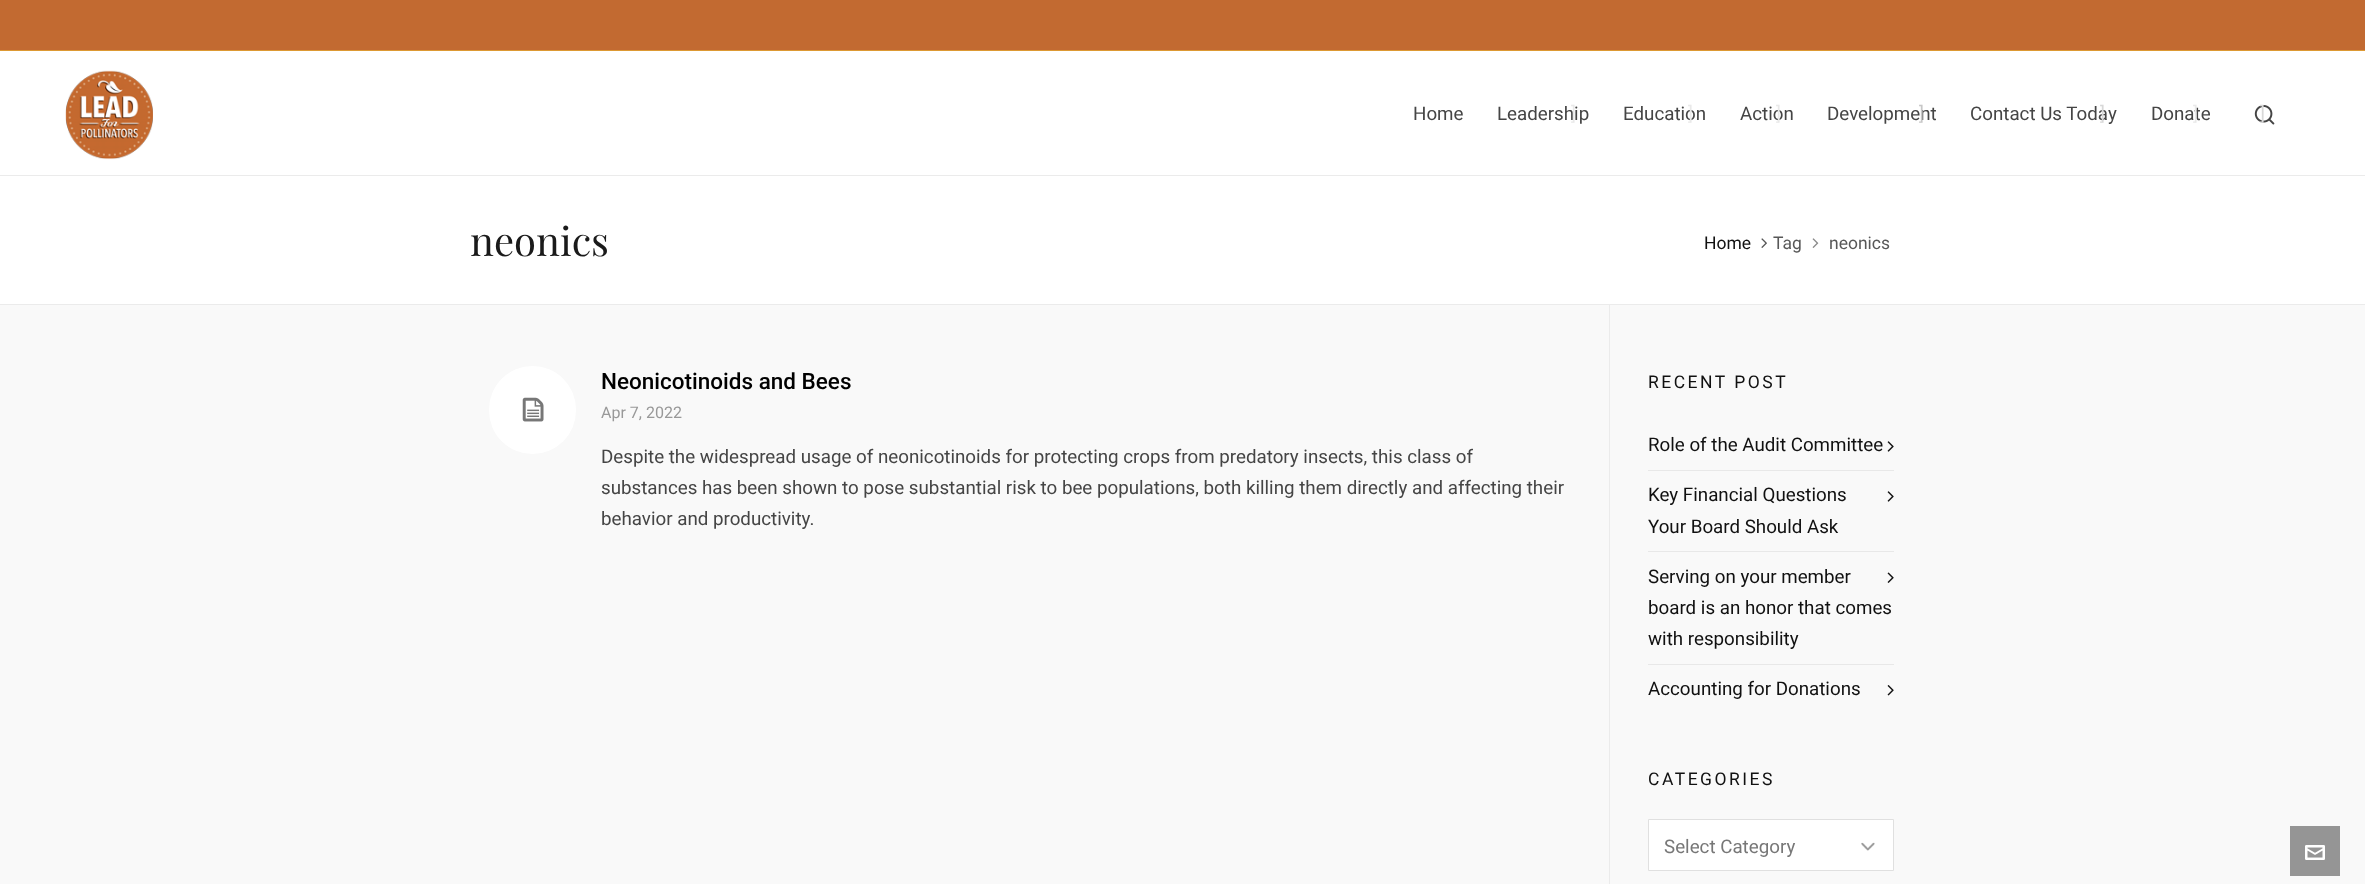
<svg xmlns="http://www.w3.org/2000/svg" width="2365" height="884">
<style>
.a{font:18.75px Roboto;fill:#454545}
.b{font:18.75px Roboto;fill:#e9e9e9}
.c{font:18.75px Roboto;fill:#c7c7c7}
.d{font:18.75px Roboto;fill:#d8d8d8}
.e{font:40px Playfair Display;fill:#1a1a1a}
.f{font:17.5px Roboto;fill:#111}
.g{font:17.5px Roboto;fill:#585858}
.h{font:500 22.5px Roboto;fill:#000}
.i{font:16px Roboto;fill:#999}
.j{font:17.5px Roboto;letter-spacing:2.5px;fill:#111}
.k{font:18.75px Roboto;fill:#111}
.l{font:18.75px Roboto;fill:#777}
</style>
<rect width="100%" height="100%" fill="#f9f9f9"/>
<path fill="#c26a31" d="M0 0h2365v50H0z"/>
<path fill="#d93" d="M0 50h2365v1H0z"/>
<path fill="#fff" d="M0 51h2365v124H0z"/>
<path fill="#ebebeb" d="M0 175h2365v1H0z"/>
<image href="1.png" x="65" y="70" width="88" height="90"/>
<image href="2.png" x="2254" y="105" width="21" height="20"/>
<path fill="#ebebeb" d="M0 304h2365v1H0z"/>
<path fill="#fff" d="M0 176h2365v128H0z"/>
<image href="3.png" x="1761" y="238" width="6" height="10"/>
<image href="4.png" x="1812" y="238" width="7" height="10"/>
<rect fill="#fff" x="489" y="366" width="87" height="88" rx="43.5"/>
<image href="5.png" x="522" y="397" width="22" height="25"/>
<path fill="#ebebeb" d="M1609 304h1v580H1609z"/>
<image href="6.png" x="1887" y="441" width="7" height="11"/>
<path fill="#e8e8e8" d="M1648 470h246v1H1648z"/>
<image href="6.png" x="1887" y="491" width="7" height="11"/>
<path fill="#e8e8e8" d="M1648 551h246v1H1648z"/>
<image href="7.png" x="1887" y="572" width="7" height="11"/>
<path fill="#e8e8e8" d="M1648 664h246v1H1648z"/>
<image href="8.png" x="1887" y="685" width="7" height="11"/>
<path fill="#fff" d="M1649 820h244v50H1649z"/>
<image href="9.png" x="1861" y="842" width="14" height="9"/>
<path fill="none" stroke="#e0e0e0" d="M1648.5 819.5h245v51H1648.5z"/>
<path fill="#959595" d="M2290 826h50v50H2290z"/>
<image href="10.png" x="2305" y="845" width="20" height="15"/>
<text class="a" x="1413" y="120">Home</text>
<text class="a" x="1497" y="120">Leadership</text>
<text class="b" x="1571" y="120">]</text>
<text class="a" x="1623" y="120">Education</text>
<text class="b" x="1688" y="120">]</text>
<text class="a" x="1740" y="120">Action</text>
<text class="b" x="1776" y="120">]</text>
<text class="a" x="1827" y="120">Development</text>
<text class="c" x="1919" y="120">]</text>
<text class="a" x="1970" y="120">Contact Us Today</text>
<text class="d" x="2100" y="120">]</text>
<text class="a" x="2151" y="120">Donate</text>
<text class="b" x="2193" y="120">]</text>
<text class="d" x="2260" y="120">]</text>
<text class="e" x="470" y="256">neonics</text>
<text class="f" x="1704" y="249">Home</text>
<text class="g" x="1773" y="249">Tag</text>
<text class="g" x="1829" y="249">neonics</text>
<text class="h" x="601" y="389">Neonicotinoids and Bees</text>
<text class="i" x="601" y="418">Apr 7, 2022</text>
<text class="a" x="601" y="463">Despite the widespread usage of neonicotinoids for protecting crops from predatory insects, this class of</text>
<text class="a" x="601" y="494">substances has been shown to pose substantial risk to bee populations, both killing them directly and affecting their</text>
<text class="a" x="601" y="525">behavior and productivity.</text>
<text class="j" x="1648" y="388">RECENT POST</text>
<text class="k" x="1648" y="451">Role of the Audit Committee</text>
<text class="k" x="1648" y="501">Key Financial Questions</text>
<text class="k" x="1648" y="533">Your Board Should Ask</text>
<text class="k" x="1648" y="583">Serving on your member</text>
<text class="k" x="1648" y="614">board is an honor that comes</text>
<text class="k" x="1648" y="645">with responsibility</text>
<text class="k" x="1648" y="695">Accounting for Donations</text>
<text class="j" x="1648" y="785">CATEGORIES</text>
<text class="l" x="1664" y="853">Select Category</text>
</svg>
